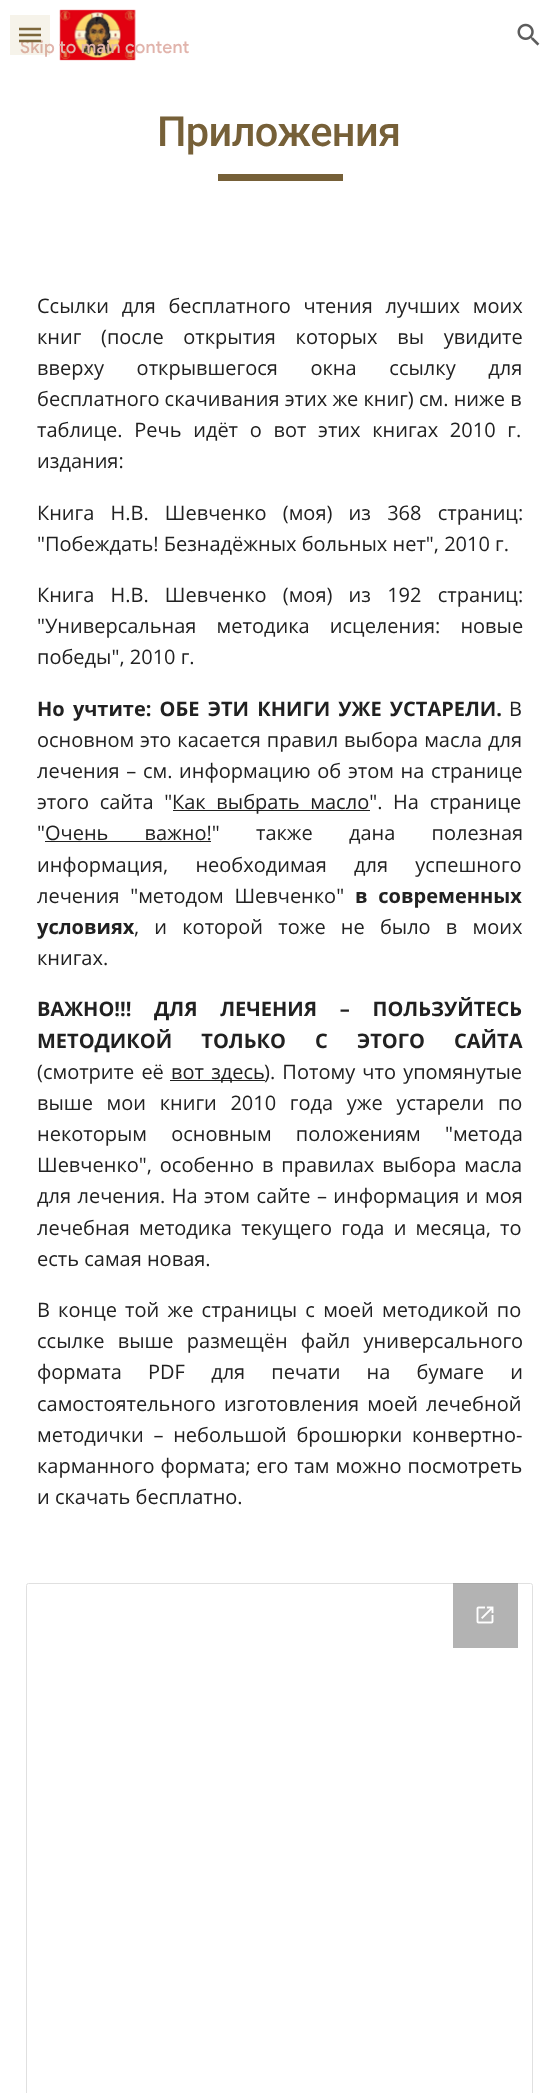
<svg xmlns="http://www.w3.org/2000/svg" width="558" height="2093">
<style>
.a{font:500 17.5px Google Sans;letter-spacing:0.2px;fill:#e1b4ac}
.b{font:500 41.5px Roboto;letter-spacing:-0.6px;fill:#766038}
.c{font:20px Open Sans;fill:#212121}
.d{font:bold 20px Open Sans;fill:#212121}
</style>
<rect width="100%" height="100%" fill="#fff"/>
<image href="1.png" x="59" y="9" width="77" height="52"/>
<image href="2.png" x="517" y="23" width="23" height="23"/>
<path fill="#766038" d="M218 174h125v7H218z"/>
<path fill="#212121" d="M173 810h197v1H173z"/>
<path fill="#212121" d="M45 841h166v1H45z"/>
<path fill="#212121" d="M170 1080h95v1H170z"/>
<rect fill="none" stroke="#e0e0e0" x="26.5" y="1583.5" width="506" height="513" rx="2"/>
<path fill="#939393b3" d="M453 1583h65v65H453z"/>
<image href="3.png" x="476" y="1606" width="18" height="18"/>
<text class="a" x="20" y="53">Skip to main content</text>
<path fill="none" stroke="#766038" stroke-width="2.5" d="M19 29h22m-22 6h22m-22 6h22"/>
<path fill="#b799511f" d="M10 15h40v40H10z"/>
<text class="b" x="157" y="146">Приложения</text>
<text class="c" x="37" y="313" word-spacing="7.5">Ссылки для бесплатного чтения лучших моих</text>
<text class="c" x="37" y="344" word-spacing="14.5">книг (после открытия которых вы увидите</text>
<text class="c" x="37" y="375" word-spacing="27.5">вверху открывшегося окна ссылку для</text>
<text class="c" x="37" y="406">бесплатного скачивания этих же книг) см. ниже в</text>
<text class="c" x="37" y="437" word-spacing="6.5">таблице. Речь идёт о вот этих книгах 2010 г.</text>
<text class="c" x="37" y="468">издания:</text>
<text class="c" x="37" y="520" word-spacing="11">Книга Н.В. Шевченко (моя) из 368 страниц:</text>
<text class="c" x="37" y="551">"Побеждать! Безнадёжных больных нет", 2010 г.</text>
<text class="c" x="37" y="602" word-spacing="11">Книга Н.В. Шевченко (моя) из 192 страниц:</text>
<text class="c" x="37" y="633" word-spacing="15">"Универсальная методика исцеления: новые</text>
<text class="c" x="37" y="664">победы", 2010 г.</text>
<text class="d" x="37" y="716" word-spacing="3">Но учтите: ОБЕ ЭТИ КНИГИ УЖЕ УСТАРЕЛИ.</text>
<text class="c" x="509" y="716">В</text>
<text class="c" x="37" y="747" word-spacing="0.75">основном это касается правил выбора масла для</text>
<text class="c" x="37" y="778" word-spacing="1.5">лечения – см. информацию об этом на странице</text>
<text class="c" x="37" y="809" word-spacing="5.5">этого сайта "</text>
<text class="c" x="172" y="809" word-spacing="5.5">Как выбрать масло". На странице</text>
<text class="c" x="37" y="840">"</text>
<text class="c" x="45" y="840" word-spacing="31">Очень важно!" также дана полезная</text>
<text class="c" x="37" y="872" word-spacing="22">информация, необходимая для успешного</text>
<text class="c" x="37" y="903" word-spacing="5.5">лечения "методом Шевченко"</text>
<text class="d" x="355" y="903" word-spacing="5.5">в современных</text>
<text class="d" x="37" y="934">условиях</text>
<text class="c" x="134" y="934" word-spacing="10">, и которой тоже не было в моих</text>
<text class="c" x="37" y="965">книгах.</text>
<text class="d" x="37" y="1016">ВАЖНО!!!</text>
<text class="d" x="154" y="1016" word-spacing="17.5">ДЛЯ ЛЕЧЕНИЯ – ПОЛЬЗУЙТЕСЬ</text>
<text class="d" x="37" y="1048" word-spacing="24">МЕТОДИКОЙ ТОЛЬКО С ЭТОГО САЙТА</text>
<text class="c" x="37" y="1079" word-spacing="2">(смотрите её</text>
<text class="c" x="171" y="1079" word-spacing="2">вот здесь</text>
<text class="c" x="264" y="1079" word-spacing="2">). П</text>
<text class="c" x="297" y="1079" word-spacing="2">отому что упомянутые</text>
<text class="c" x="37" y="1110" word-spacing="8.5">выше мои книги 2010 года уже устарели по</text>
<text class="c" x="37" y="1141" word-spacing="19">некоторым основным положениям "метода</text>
<text class="c" x="37" y="1172" word-spacing="2.75">Шевченко", особенно в правилах выбора масла</text>
<text class="c" x="37" y="1203" word-spacing="1.25">для лечения. На этом сайте – информация и моя</text>
<text class="c" x="37" y="1235" word-spacing="4">лечебная методика текущего года и месяца, то</text>
<text class="c" x="37" y="1266">есть самая новая.</text>
<text class="c" x="37" y="1317" word-spacing="3">В конце той же страницы с моей методикой по</text>
<text class="c" x="37" y="1348" word-spacing="8">ссылке выше размещён файл универсального</text>
<text class="c" x="37" y="1379" word-spacing="21">формата PDF для печати на бумаге и</text>
<text class="c" x="37" y="1411" word-spacing="3">самостоятельного изготовления моей лечебной</text>
<text class="c" x="37" y="1442" word-spacing="4.5">методички – небольшой брошюрки конвертно-</text>
<text class="c" x="37" y="1473" word-spacing="0.75">карманного формата; его там можно посмотреть</text>
<text class="c" x="37" y="1504">и скачать бесплатно.</text>
</svg>
